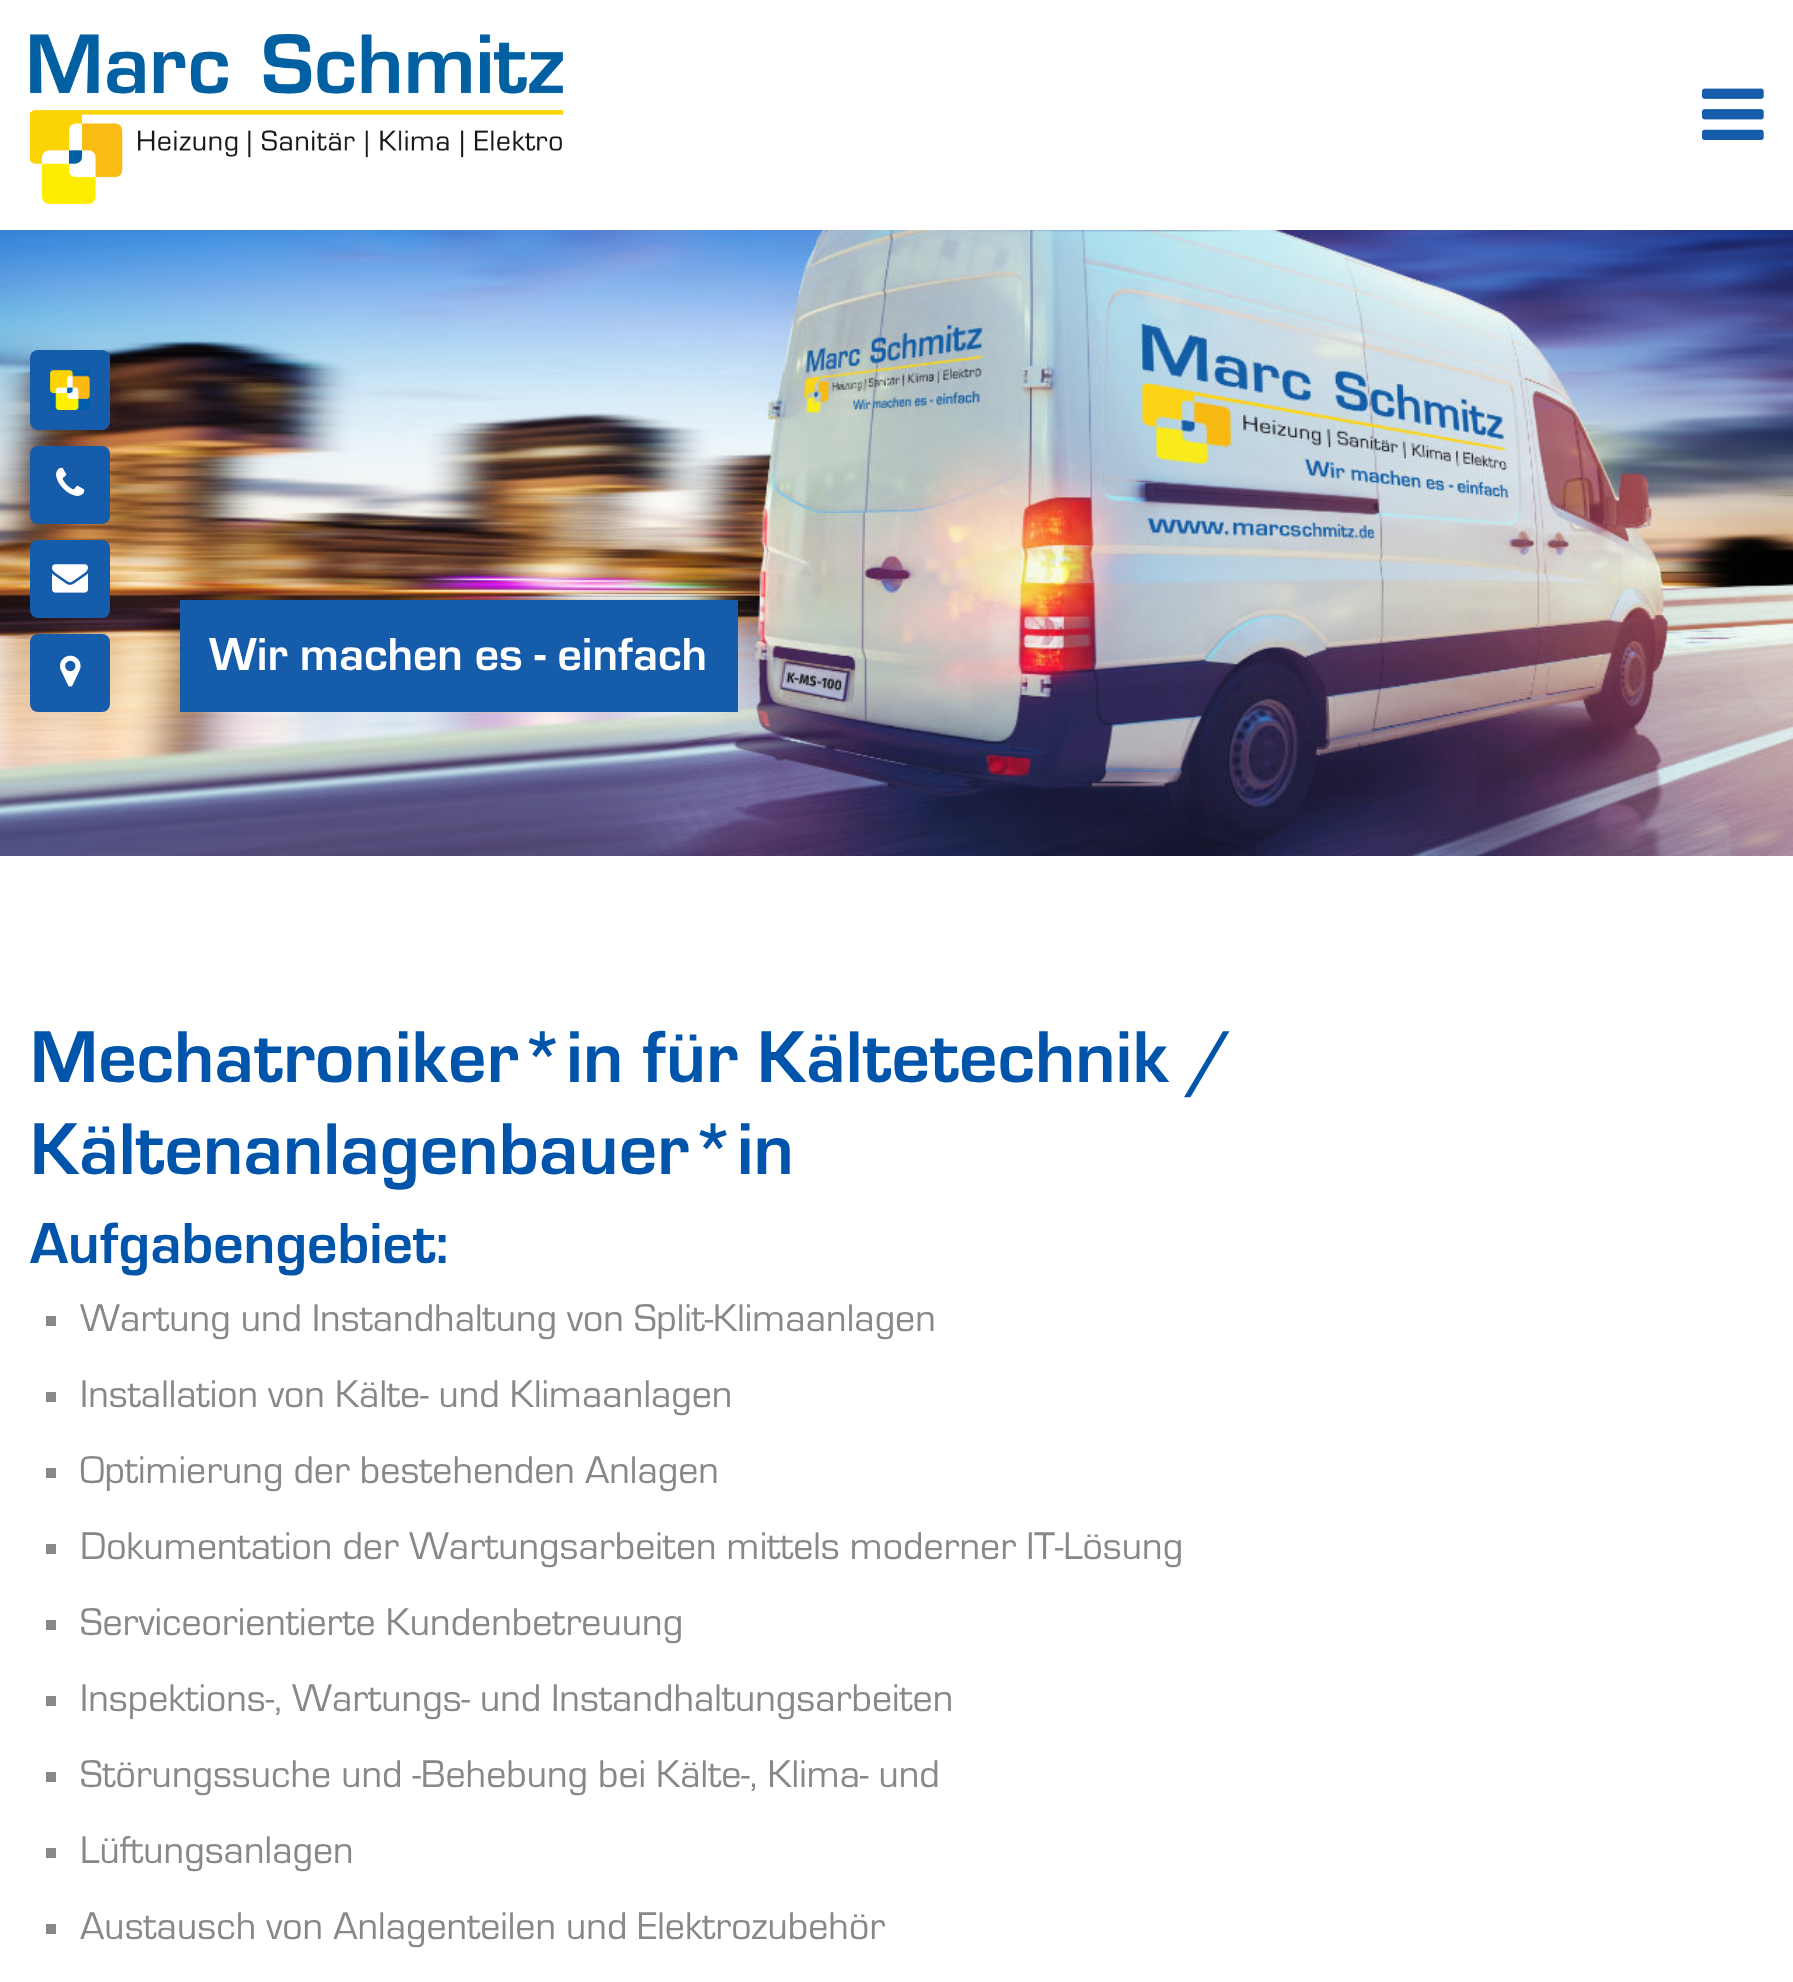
<svg xmlns="http://www.w3.org/2000/svg" width="1793" height="1982">
<style>
.a{font:bold 48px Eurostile;fill:#fff}
.b{font:bold 76px Eurostile;fill:#0054aa}
.c{font:bold 60px Eurostile;fill:#0054aa}
.d{font:40px Eurostile;fill:#888}
</style>
<rect width="100%" height="100%" fill="#fff"/>
<image href="1.png" x="30" y="34" width="534" height="170"/>
<image href="2.png" x="1702" y="88" width="62" height="52"/>
<image href="3.png" x="0" y="230" width="1793" height="626"/>
<rect fill="#155caa" x="30" y="350" width="80" height="80" rx="8"/>
<image href="4.png" x="50" y="370" width="40" height="40"/>
<rect fill="#155caa" x="30" y="446" width="80" height="78" rx="8"/>
<image href="5.png" x="56" y="467" width="29" height="29"/>
<rect fill="#155caa" x="30" y="540" width="80" height="78" rx="8"/>
<image href="6.png" x="52" y="564" width="36" height="29"/>
<rect fill="#155caa" x="30" y="634" width="80" height="78" rx="8"/>
<image href="7.png" x="60" y="655" width="21" height="32"/>
<path fill="#155caa" d="M180 600h558v112H180z"/>
<path fill="#888" d="M46 1316h10v10H46z"/>
<path fill="#888" d="M46 1392h10v10H46z"/>
<path fill="#888" d="M46 1468h10v10H46z"/>
<path fill="#888" d="M46 1544h10v10H46z"/>
<path fill="#888" d="M46 1620h10v10H46z"/>
<path fill="#888" d="M46 1696h10v10H46z"/>
<path fill="#888" d="M46 1772h10v10H46z"/>
<path fill="#888" d="M46 1848h10v10H46z"/>
<path fill="#888" d="M46 1924h10v10H46z"/>
<text class="a" x="209" y="670">Wir machen es - einfach</text>
<text class="b" x="30" y="1082">Mechatroniker*in für Kältetechnik /</text>
<text class="b" x="30" y="1174">Kältenanlagenbauer*in</text>
<text class="c" x="30" y="1263">Aufgabengebiet:</text>
<text class="d" x="80" y="1331">Wartung und Instandhaltung von Split-Klimaanlagen</text>
<text class="d" x="80" y="1407">Installation von Kälte- und Klimaanlagen</text>
<text class="d" x="80" y="1483">Optimierung der bestehenden Anlagen</text>
<text class="d" x="80" y="1559">Dokumentation der Wartungsarbeiten mittels moderner IT-Lösung</text>
<text class="d" x="80" y="1635">Serviceorientierte Kundenbetreuung</text>
<text class="d" x="80" y="1711">Inspektions-, Wartungs- und Instandhaltungsarbeiten</text>
<text class="d" x="80" y="1787">Störungssuche und -Behebung bei Kälte-, Klima- und</text>
<text class="d" x="80" y="1863">Lüftungsanlagen</text>
<text class="d" x="80" y="1939">Austausch von Anlagenteilen und Elektrozubehör</text>
</svg>
